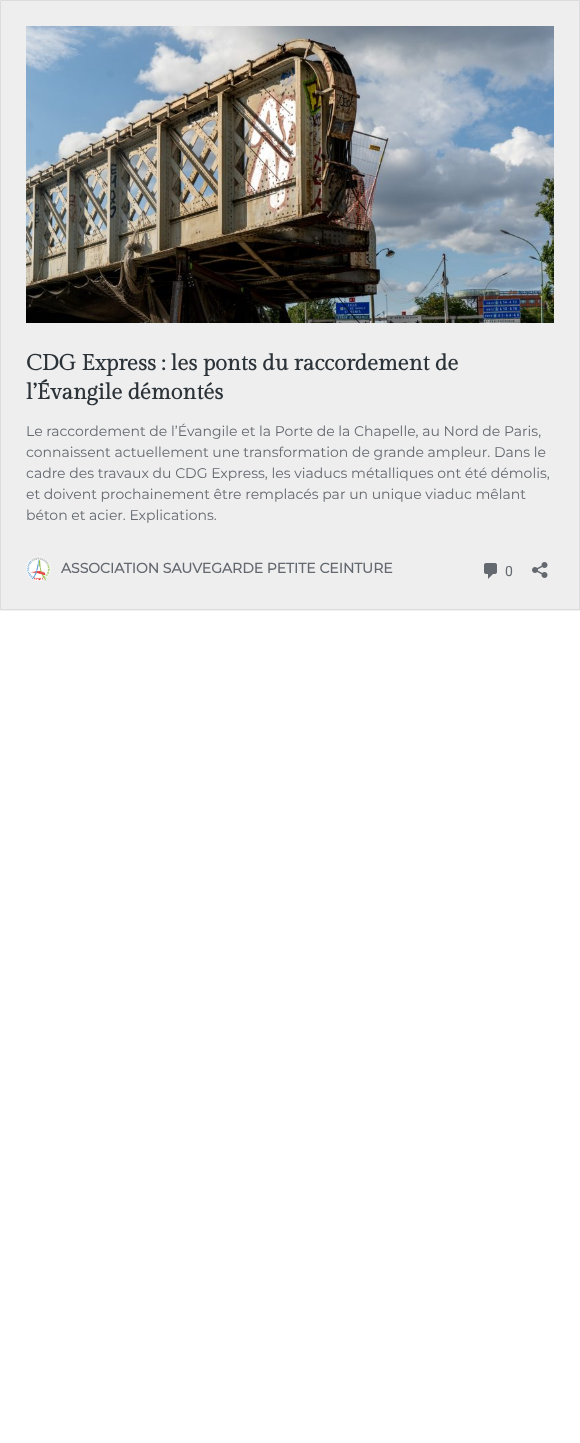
<svg xmlns="http://www.w3.org/2000/svg" width="580" height="1443">
<style>
.a{font:bold 22px Gilda Display;fill:#2c3338}
.b{font:100 14px Montserrat;fill:#646970}
.c{font:bold 14px Montserrat;fill:#646970}
.d{font:14px Roboto;fill:#646970}
</style>
<rect width="100%" height="100%" fill="#fff"/>
<path fill="#0000000d" filter="blur(0.5px)" d="M0 1h580v610H0z"/>
<path fill="#eee" stroke="#dcdcde" d="M0.5 0.5h579v609H0.5z"/>
<image href="1.png" x="26" y="26" width="528" height="297"/>
<image href="2.png" x="26" y="556" width="25" height="25"/>
<image href="3.png" x="484" y="563" width="13" height="16"/>
<image href="4.png" x="532" y="562" width="16" height="16"/>
<text class="a" x="26" y="370">CDG Express : les ponts du raccordement de</text>
<text class="a" x="26" y="399">l’Évangile démontés</text>
<text class="b" x="26" y="436">Le raccordement de l’Évangile et la Porte de la Chapelle, au Nord de Paris,</text>
<text class="b" x="26" y="457">connaissent actuellement une transformation de grande ampleur. Dans le</text>
<text class="b" x="26" y="478">cadre des travaux du CDG Express, les viaducs métalliques ont été démolis,</text>
<text class="b" x="26" y="499">et doivent prochainement être remplacés par un unique viaduc mêlant</text>
<text class="b" x="26" y="520">béton et acier. Explications.</text>
<text class="c" x="61" y="573">ASSOCIATION SAUVEGARDE PETITE CEINTURE</text>
<text class="d" x="505" y="576">0</text>
</svg>
